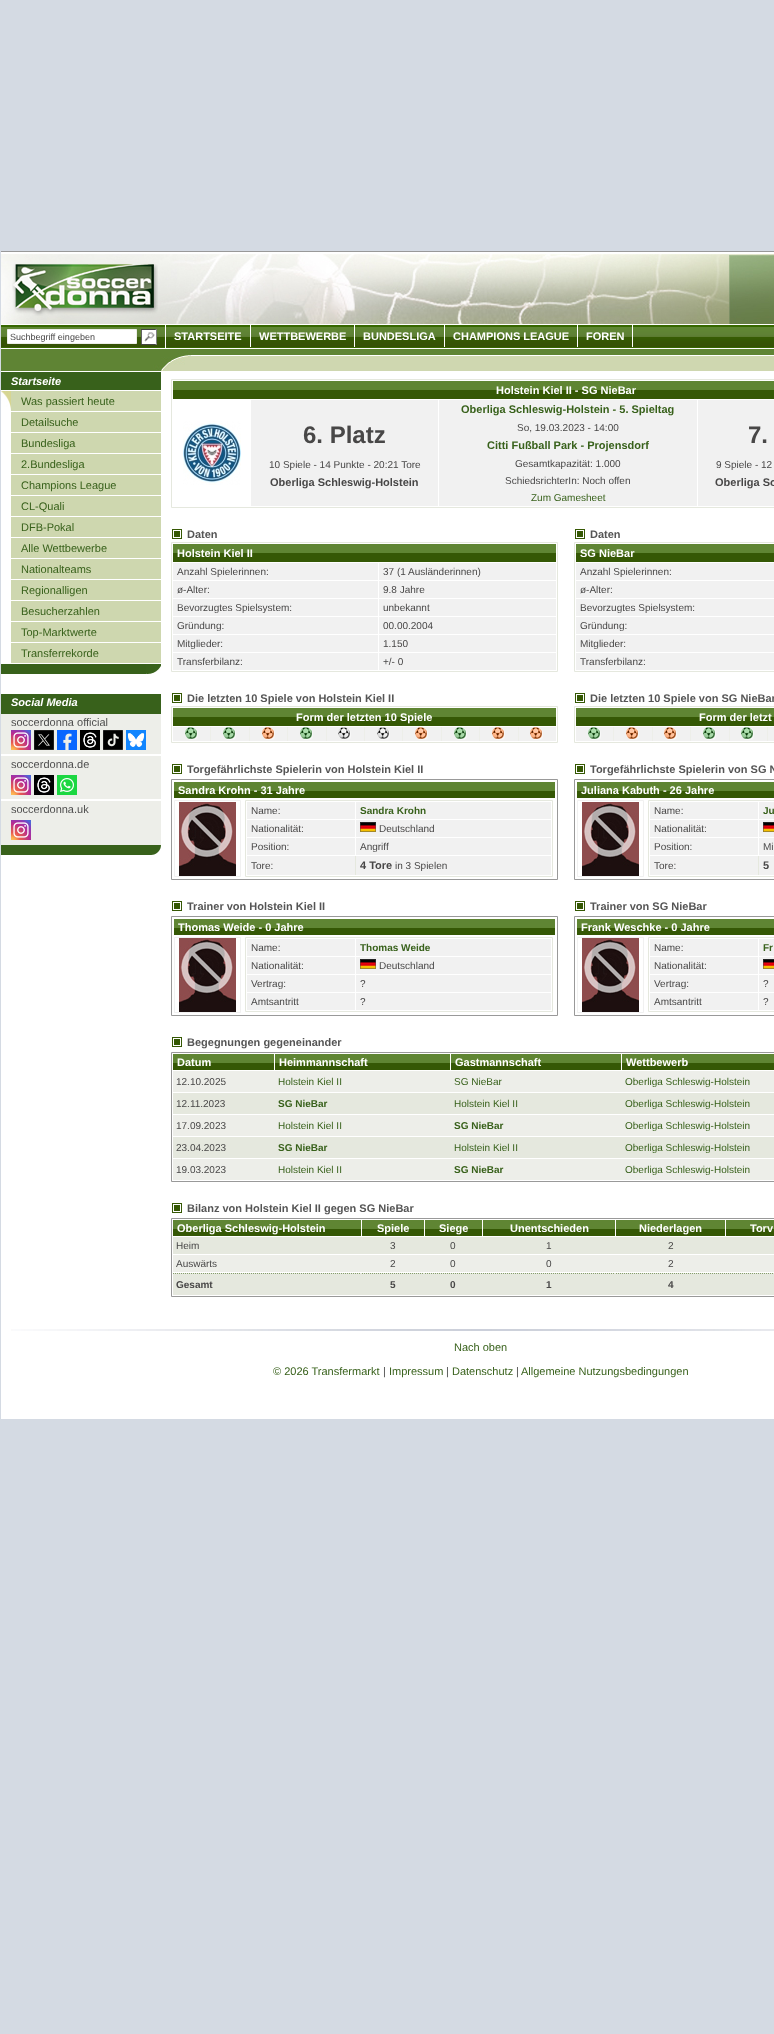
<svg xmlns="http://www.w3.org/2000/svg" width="774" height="2034">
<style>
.a{font:9px Liberation Sans;fill:#484747}
.b{font:bold 11px Liberation Sans;fill:#fff}
.c{font:italic bold 11px Liberation Sans;fill:#fff}
.d{font:11px Liberation Sans;fill:#38611b}
.e{font:11px Liberation Sans;fill:#4f4f4f}
.f{font:bold 24px Liberation Sans;fill:#484747}
.g{font:10px Liberation Sans;fill:#484747}
.h{font:bold 11px Liberation Sans;fill:#484747}
.i{font:bold 11px Liberation Sans;fill:#38611b}
.j{font:10px Liberation Sans;fill:#38611b}
.k{font:bold 11px Liberation Sans;fill:#555}
.l{font:bold 10px Liberation Sans;fill:#38611b}
.m{font:bold 10px Liberation Sans;fill:#484747}
</style>
<rect width="100%" height="100%" fill="#d4dae3"/>
<path fill="#fff" d="M1 252h773v1167H1z"/>
<image href="1.png" x="1" y="254" width="773" height="70"/>
<image href="2.png" x="12" y="264" width="146" height="52"/>
<image href="3.png" x="1" y="325" width="773" height="23"/>
<path fill="#fff" d="M165 325h1v23H165z"/>
<path fill="#fff" stroke="#edeee9" d="M7.5 329.5h129v14H7.5z"/>
<image href="4.png" x="141" y="329" width="16" height="16"/>
<path fill="#fff" d="M250 325h1v22H250z"/>
<path fill="#fff" d="M354 325h1v22H354z"/>
<path fill="#fff" d="M444 325h1v22H444z"/>
<path fill="#fff" d="M577 325h1v22H577z"/>
<path fill="#fff" d="M632 325h1v22H632z"/>
<image href="5.png" x="1" y="349" width="773" height="22"/>
<path fill="#999" d="M1 251h773v1H1z"/>
<path fill="#38611b" d="M1 372h160v18H1z"/>
<path fill="#ced7af" d="M11 391h150v20H11z"/>
<image href="6.png" x="1" y="391" width="10" height="20"/>
<path fill="#ced7af" d="M11 412h150v20H11z"/>
<path fill="#ced7af" d="M11 433h150v20H11z"/>
<path fill="#ced7af" d="M11 454h150v20H11z"/>
<path fill="#ced7af" d="M11 475h150v20H11z"/>
<path fill="#ced7af" d="M11 496h150v20H11z"/>
<path fill="#ced7af" d="M11 517h150v20H11z"/>
<path fill="#ced7af" d="M11 538h150v20H11z"/>
<path fill="#ced7af" d="M11 559h150v20H11z"/>
<path fill="#ced7af" d="M11 580h150v20H11z"/>
<path fill="#ced7af" d="M11 601h150v20H11z"/>
<path fill="#ced7af" d="M11 622h150v20H11z"/>
<path fill="#ced7af" d="M11 643h150v20H11z"/>
<path fill="#38611b" d="M1 664h145v10H1z"/>
<image href="7.png" x="146" y="664" width="15" height="10"/>
<path fill="#38611b" d="M1 694h160v20H1z"/>
<path fill="#edeee9" d="M1 714h160v40H1z"/>
<image href="8.png" x="11" y="730" width="20" height="20"/>
<image href="9.png" x="34" y="730" width="20" height="20"/>
<image href="10.png" x="57" y="730" width="20" height="20"/>
<image href="11.png" x="80" y="730" width="20" height="20"/>
<image href="12.png" x="103" y="730" width="20" height="20"/>
<image href="13.png" x="126" y="730" width="20" height="20"/>
<path fill="#edeee9" d="M1 756h160v43H1z"/>
<image href="8.png" x="11" y="775" width="20" height="20"/>
<image href="14.png" x="34" y="775" width="20" height="20"/>
<image href="15.png" x="57" y="775" width="20" height="20"/>
<path fill="#edeee9" d="M1 801h160v44H1z"/>
<image href="8.png" x="11" y="820" width="20" height="20"/>
<path fill="#38611b" d="M1 845h160c0 5.5-4.5 10-10 10h-150z"/>
<path fill="none" stroke="#e5e8de" d="M171.5 379.5h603v128H171.5z"/>
<image href="16.png" x="173" y="381" width="601" height="18"/>
<image href="17.png" x="183" y="421" width="58" height="64"/>
<path fill="#f1f1f1" d="M251 400h187v106H251z"/>
<path fill="#f1f1f1" d="M439 400h258v106H439z"/>
<path fill="#f1f1f1" d="M698 400h76v106H698z"/>
<image href="18.png" x="172" y="529" width="10" height="10"/>
<path fill="none" stroke="#e5e8de" d="M171.5 542.5h386v129H171.5z"/>
<image href="19.png" x="173" y="544" width="383" height="18"/>
<path fill="#f1f1f1" d="M173 563h205v17H173z"/>
<path fill="#f1f1f1" d="M379 563h177v17H379z"/>
<path fill="#f1f1f1" d="M173 581h205v17H173z"/>
<path fill="#f1f1f1" d="M379 581h177v17H379z"/>
<path fill="#f1f1f1" d="M173 599h205v17H173z"/>
<path fill="#f1f1f1" d="M379 599h177v17H379z"/>
<path fill="#f1f1f1" d="M173 617h205v17H173z"/>
<path fill="#f1f1f1" d="M379 617h177v17H379z"/>
<path fill="#f1f1f1" d="M173 635h205v17H173z"/>
<path fill="#f1f1f1" d="M379 635h177v17H379z"/>
<path fill="#f1f1f1" d="M173 653h205v17H173z"/>
<path fill="#f1f1f1" d="M379 653h177v17H379z"/>
<image href="18.png" x="172" y="693" width="10" height="10"/>
<path fill="none" stroke="#e5e8de" d="M171.5 706.5h386v36H171.5z"/>
<image href="19.png" x="173" y="708" width="383" height="18"/>
<path fill="#edeee9" d="M210 727h309v14H210z"/>
<path fill="#f1f1f1" d="M173 727h37v14H173z"/>
<image href="20.png" x="185" y="727" width="13" height="13"/>
<path fill="#f1f1f1" d="M211 727h38v14H211z"/>
<image href="20.png" x="223" y="727" width="13" height="13"/>
<path fill="#f1f1f1" d="M250 727h37v14H250z"/>
<image href="21.png" x="262" y="727" width="13" height="13"/>
<path fill="#f1f1f1" d="M288 727h38v14H288z"/>
<image href="20.png" x="300" y="727" width="13" height="13"/>
<path fill="#f1f1f1" d="M327 727h37v14H327z"/>
<image href="22.png" x="338" y="727" width="13" height="13"/>
<path fill="#f1f1f1" d="M365 727h37v14H365z"/>
<image href="22.png" x="377" y="727" width="13" height="13"/>
<path fill="#f1f1f1" d="M403 727h38v14H403z"/>
<image href="21.png" x="415" y="727" width="13" height="13"/>
<path fill="#f1f1f1" d="M442 727h37v14H442z"/>
<image href="20.png" x="454" y="727" width="13" height="13"/>
<path fill="#f1f1f1" d="M480 727h38v14H480z"/>
<image href="21.png" x="492" y="727" width="13" height="13"/>
<path fill="#f1f1f1" d="M519 727h37v14H519z"/>
<image href="21.png" x="530" y="727" width="13" height="13"/>
<image href="18.png" x="172" y="764" width="10" height="10"/>
<path fill="none" stroke="#999" d="M171.5 779.5h386v100H171.5z"/>
<image href="23.png" x="174" y="782" width="381" height="16"/>
<path fill="none" stroke="#f1f1f1" d="M174.5 800.5h66v76H174.5z"/>
<image href="24.png" x="179" y="802" width="57" height="74"/>
<path fill="none" stroke="#e5e8de" d="M245.5 800.5h307v76H245.5z"/>
<path fill="#f1f1f1" d="M247 802h108v17H247z"/>
<path fill="#f1f1f1" d="M356 802h195v17H356z"/>
<path fill="#f1f1f1" d="M247 820h108v17H247z"/>
<path fill="#f1f1f1" d="M356 820h195v17H356z"/>
<image href="25.png" x="360" y="822" width="16" height="10"/>
<path fill="#f1f1f1" d="M247 838h108v17H247z"/>
<path fill="#f1f1f1" d="M356 838h195v17H356z"/>
<path fill="#e5e8de" d="M355 856h1v19H355z"/>
<path fill="#f1f1f1" d="M247 856h108v19H247z"/>
<path fill="#f1f1f1" d="M356 856h195v19H356z"/>
<image href="18.png" x="172" y="901" width="10" height="10"/>
<path fill="none" stroke="#999" d="M171.5 916.5h386v99H171.5z"/>
<image href="23.png" x="174" y="919" width="381" height="16"/>
<path fill="none" stroke="#f1f1f1" d="M174.5 937.5h66v75H174.5z"/>
<image href="24.png" x="179" y="938" width="57" height="74"/>
<path fill="none" stroke="#e5e8de" d="M245.5 937.5h307v74H245.5z"/>
<path fill="#f1f1f1" d="M247 939h108v17H247z"/>
<path fill="#f1f1f1" d="M356 939h195v17H356z"/>
<path fill="#f1f1f1" d="M247 957h108v17H247z"/>
<path fill="#f1f1f1" d="M356 957h195v17H356z"/>
<image href="25.png" x="360" y="959" width="16" height="10"/>
<path fill="#f1f1f1" d="M247 975h108v17H247z"/>
<path fill="#f1f1f1" d="M356 975h195v17H356z"/>
<path fill="#f1f1f1" d="M247 993h108v17H247z"/>
<path fill="#f1f1f1" d="M356 993h195v17H356z"/>
<image href="18.png" x="575" y="529" width="10" height="10"/>
<path fill="none" stroke="#e5e8de" d="M574.5 542.5h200v129H574.5z"/>
<image href="26.png" x="576" y="544" width="198" height="18"/>
<path fill="#f1f1f1" d="M576 563h198v17H576z"/>
<path fill="#f1f1f1" d="M576 581h198v17H576z"/>
<path fill="#f1f1f1" d="M576 599h198v17H576z"/>
<path fill="#f1f1f1" d="M576 617h198v17H576z"/>
<path fill="#f1f1f1" d="M576 635h198v17H576z"/>
<path fill="#f1f1f1" d="M576 653h198v17H576z"/>
<image href="18.png" x="575" y="693" width="10" height="10"/>
<path fill="none" stroke="#e5e8de" d="M574.5 706.5h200v36H574.5z"/>
<image href="26.png" x="576" y="708" width="198" height="18"/>
<path fill="#edeee9" d="M613 727h155v14H613z"/>
<path fill="#f1f1f1" d="M576 727h37v14H576z"/>
<image href="20.png" x="588" y="727" width="13" height="13"/>
<path fill="#f1f1f1" d="M614 727h38v14H614z"/>
<image href="21.png" x="626" y="727" width="13" height="13"/>
<path fill="#f1f1f1" d="M653 727h37v14H653z"/>
<image href="21.png" x="664" y="727" width="13" height="13"/>
<path fill="#f1f1f1" d="M691 727h38v14H691z"/>
<image href="20.png" x="703" y="727" width="13" height="13"/>
<path fill="#f1f1f1" d="M730 727h37v14H730z"/>
<image href="20.png" x="741" y="727" width="13" height="13"/>
<path fill="#f1f1f1" d="M768 727h6v14H768z"/>
<image href="18.png" x="575" y="764" width="10" height="10"/>
<path fill="none" stroke="#999" d="M574.5 779.5h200v100H574.5z"/>
<image href="27.png" x="577" y="782" width="197" height="16"/>
<path fill="none" stroke="#f1f1f1" d="M577.5 800.5h66v76H577.5z"/>
<image href="24.png" x="582" y="802" width="57" height="74"/>
<path fill="none" stroke="#e5e8de" d="M648.5 800.5h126v76H648.5z"/>
<path fill="#f1f1f1" d="M650 802h108v17H650z"/>
<path fill="#f1f1f1" d="M759 802h15v17H759z"/>
<path fill="#f1f1f1" d="M650 820h108v17H650z"/>
<path fill="#f1f1f1" d="M759 820h15v17H759z"/>
<image href="28.png" x="763" y="822" width="11" height="10"/>
<path fill="#f1f1f1" d="M650 838h108v17H650z"/>
<path fill="#f1f1f1" d="M759 838h15v17H759z"/>
<path fill="#e5e8de" d="M758 856h1v19H758z"/>
<path fill="#f1f1f1" d="M650 856h108v19H650z"/>
<path fill="#f1f1f1" d="M759 856h15v19H759z"/>
<image href="18.png" x="575" y="901" width="10" height="10"/>
<path fill="none" stroke="#999" d="M574.5 916.5h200v99H574.5z"/>
<image href="27.png" x="577" y="919" width="197" height="16"/>
<path fill="none" stroke="#f1f1f1" d="M577.5 937.5h66v75H577.5z"/>
<image href="24.png" x="582" y="938" width="57" height="74"/>
<path fill="none" stroke="#e5e8de" d="M648.5 937.5h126v74H648.5z"/>
<path fill="#f1f1f1" d="M650 939h108v17H650z"/>
<path fill="#f1f1f1" d="M759 939h15v17H759z"/>
<path fill="#f1f1f1" d="M650 957h108v17H650z"/>
<path fill="#f1f1f1" d="M759 957h15v17H759z"/>
<image href="28.png" x="763" y="959" width="11" height="10"/>
<path fill="#f1f1f1" d="M650 975h108v17H650z"/>
<path fill="#f1f1f1" d="M759 975h15v17H759z"/>
<path fill="#f1f1f1" d="M650 993h108v17H650z"/>
<path fill="#f1f1f1" d="M759 993h15v17H759z"/>
<image href="18.png" x="172" y="1037" width="10" height="10"/>
<path fill="none" stroke="#999" d="M171.5 1052.5h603v129H171.5z"/>
<image href="29.png" x="173" y="1054" width="101" height="16"/>
<image href="30.png" x="275" y="1054" width="175" height="16"/>
<image href="31.png" x="451" y="1054" width="170" height="16"/>
<image href="32.png" x="622" y="1054" width="152" height="16"/>
<path fill="#edeee9" d="M173 1071h601v21H173z"/>
<path fill="#e5e8de" d="M173 1093h601v21H173z"/>
<path fill="#edeee9" d="M173 1115h601v21H173z"/>
<path fill="#e5e8de" d="M173 1137h601v21H173z"/>
<path fill="#edeee9" d="M173 1159h601v21H173z"/>
<image href="18.png" x="172" y="1203" width="10" height="10"/>
<path fill="none" stroke="#999" d="M171.5 1218.5h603v78H171.5z"/>
<image href="33.png" x="173" y="1220" width="188" height="16"/>
<image href="34.png" x="362" y="1220" width="62" height="16"/>
<image href="35.png" x="425" y="1220" width="57" height="16"/>
<image href="36.png" x="483" y="1220" width="132" height="16"/>
<image href="37.png" x="616" y="1220" width="109" height="16"/>
<image href="38.png" x="726" y="1220" width="48" height="16"/>
<path fill="#e5e8de" d="M173 1237h601v17H173z"/>
<path fill="#edeee9" d="M173 1255h601v17H173z"/>
<path fill="#e5e8de" d="M173 1273h601v22H173z"/>
<path fill="none" stroke="#869e6c" stroke-dasharray="1 1" d="M726 1273.5h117"/>
<path fill="none" stroke="#869e6c" stroke-dasharray="1 1" d="M173 1273.5h188"/>
<path fill="none" stroke="#869e6c" stroke-dasharray="1 1" d="M362 1273.5h62"/>
<path fill="none" stroke="#869e6c" stroke-dasharray="1 1" d="M425 1273.5h57"/>
<path fill="none" stroke="#869e6c" stroke-dasharray="1 1" d="M483 1273.5h132"/>
<path fill="none" stroke="#869e6c" stroke-dasharray="1 1" d="M616 1273.5h109"/>
<image href="39.png" x="11" y="1329" width="763" height="2"/>
<text class="a" x="10" y="340">Suchbegriff eingeben</text>
<text class="b" x="174" y="340">STARTSEITE</text>
<text class="b" x="259" y="340">WETTBEWERBE</text>
<text class="b" x="363" y="340">BUNDESLIGA</text>
<text class="b" x="453" y="340">CHAMPIONS LEAGUE</text>
<text class="b" x="586" y="340">FOREN</text>
<text class="c" x="11" y="385">Startseite</text>
<text class="d" x="21" y="405">Was passiert heute</text>
<text class="d" x="21" y="426">Detailsuche</text>
<text class="d" x="21" y="447">Bundesliga</text>
<text class="d" x="21" y="468">2.Bundesliga</text>
<text class="d" x="21" y="489">Champions League</text>
<text class="d" x="21" y="510">CL-Quali</text>
<text class="d" x="21" y="531">DFB-Pokal</text>
<text class="d" x="21" y="552">Alle Wettbewerbe</text>
<text class="d" x="21" y="573">Nationalteams</text>
<text class="d" x="21" y="594">Regionalligen</text>
<text class="d" x="21" y="615">Besucherzahlen</text>
<text class="d" x="21" y="636">Top-Marktwerte</text>
<text class="d" x="21" y="657">Transferrekorde</text>
<text class="c" x="11" y="706">Social Media</text>
<text class="e" x="11" y="726">soccerdonna official</text>
<text class="e" x="11" y="768">soccerdonna.de</text>
<text class="e" x="11" y="813">soccerdonna.uk</text>
<text class="b" x="496" y="394">Holstein Kiel II - SG NieBar</text>
<text class="f" x="303" y="443">6. Platz</text>
<text class="g" x="269" y="468">10 Spiele - 14 Punkte - 20:21 Tore</text>
<text class="h" x="270" y="486">Oberliga Schleswig-Holstein</text>
<text class="i" x="461" y="413">Oberliga Schleswig-Holstein - 5. Spieltag</text>
<text class="g" x="517" y="431">So, 19.03.2023 - 14:00</text>
<text class="i" x="487" y="449">Citti Fußball Park - Projensdorf</text>
<text class="g" x="515" y="467">Gesamtkapazität: 1.000</text>
<text class="g" x="505" y="484">SchiedsrichterIn: Noch offen</text>
<text class="j" x="531" y="501">Zum Gamesheet</text>
<text class="f" x="748" y="443">7.</text>
<text class="g" x="716" y="468">9 Spiele - 12</text>
<text class="h" x="715" y="486">Oberliga Sc</text>
<text class="k" x="187" y="538">Daten</text>
<text class="b" x="177" y="557">Holstein Kiel II</text>
<text class="g" x="177" y="575">Anzahl Spielerinnen:</text>
<text class="g" x="383" y="575">37 (1</text>
<text class="g" x="408" y="575">Ausländerinnen)</text>
<text class="g" x="177" y="593">ø-Alter:</text>
<text class="g" x="383" y="593">9.8 Jahre</text>
<text class="g" x="177" y="611">Bevorzugtes Spielsystem:</text>
<text class="g" x="383" y="611">unbekannt</text>
<text class="g" x="177" y="629">Gründung:</text>
<text class="g" x="383" y="629">00.00.2004</text>
<text class="g" x="177" y="647">Mitglieder:</text>
<text class="g" x="383" y="647">1.150</text>
<text class="g" x="177" y="665">Transferbilanz:</text>
<text class="g" x="383" y="665">+/- 0</text>
<text class="k" x="187" y="702">Die letzten 10 Spiele von Holstein Kiel II</text>
<text class="b" x="296" y="721">Form der letzten 10 Spiele</text>
<text class="k" x="187" y="773">Torgefährlichste Spielerin von Holstein Kiel II</text>
<text class="b" x="178" y="794">Sandra Krohn - 31 Jahre</text>
<text class="g" x="251" y="814">Name:</text>
<text class="l" x="360" y="814">Sandra Krohn</text>
<text class="g" x="251" y="832">Nationalität:</text>
<text class="g" x="379" y="832">Deutschland</text>
<text class="g" x="251" y="850">Position:</text>
<text class="g" x="360" y="850">Angriff</text>
<text class="g" x="251" y="869">Tore:</text>
<text class="h" x="360" y="869">4 Tore</text>
<text class="g" x="395" y="869">in 3 Spielen</text>
<text class="k" x="187" y="910">Trainer von Holstein Kiel II</text>
<text class="b" x="178" y="931">Thomas Weide - 0 Jahre</text>
<text class="g" x="251" y="951">Name:</text>
<text class="l" x="360" y="951">Thomas Weide</text>
<text class="g" x="251" y="969">Nationalität:</text>
<text class="g" x="379" y="969">Deutschland</text>
<text class="g" x="251" y="987">Vertrag:</text>
<text class="g" x="360" y="987">?</text>
<text class="g" x="251" y="1005">Amtsantritt</text>
<text class="g" x="360" y="1005">?</text>
<text class="k" x="590" y="538">Daten</text>
<text class="b" x="580" y="557">SG NieBar</text>
<text class="g" x="580" y="575">Anzahl Spielerinnen:</text>
<text class="g" x="580" y="593">ø-Alter:</text>
<text class="g" x="580" y="611">Bevorzugtes Spielsystem:</text>
<text class="g" x="580" y="629">Gründung:</text>
<text class="g" x="580" y="647">Mitglieder:</text>
<text class="g" x="580" y="665">Transferbilanz:</text>
<text class="k" x="590" y="702">Die letzten 10 Spiele von SG NieBar</text>
<text class="b" x="699" y="721">Form der letzt</text>
<text class="k" x="590" y="773">Torgefährlichste Spielerin von SG N</text>
<text class="b" x="581" y="794">Juliana Kabuth - 26 Jahre</text>
<text class="g" x="654" y="814">Name:</text>
<text class="l" x="763" y="814">Ju</text>
<text class="g" x="654" y="832">Nationalität:</text>
<text class="g" x="654" y="850">Position:</text>
<text class="g" x="763" y="850">Mi</text>
<text class="g" x="654" y="869">Tore:</text>
<text class="h" x="763" y="869">5</text>
<text class="k" x="590" y="910">Trainer von SG NieBar</text>
<text class="b" x="581" y="931">Frank Weschke - 0 Jahre</text>
<text class="g" x="654" y="951">Name:</text>
<text class="l" x="763" y="951">Fr</text>
<text class="g" x="654" y="969">Nationalität:</text>
<text class="g" x="654" y="987">Vertrag:</text>
<text class="g" x="763" y="987">?</text>
<text class="g" x="654" y="1005">Amtsantritt</text>
<text class="g" x="763" y="1005">?</text>
<text class="k" x="187" y="1046">Begegnungen gegeneinander</text>
<text class="b" x="177" y="1066">Datum</text>
<text class="b" x="279" y="1066">Heimmannschaft</text>
<text class="b" x="455" y="1066">Gastmannschaft</text>
<text class="b" x="626" y="1066">Wettbewerb</text>
<text class="g" x="176" y="1085">12.10.2025</text>
<text class="j" x="278" y="1085">Holstein Kiel II</text>
<text class="j" x="454" y="1085">SG NieBar</text>
<text class="j" x="625" y="1085">Oberliga Schleswig-Holstein</text>
<text class="g" x="176" y="1107">12.11.2023</text>
<text class="l" x="278" y="1107">SG NieBar</text>
<text class="j" x="454" y="1107">Holstein Kiel II</text>
<text class="j" x="625" y="1107">Oberliga Schleswig-Holstein</text>
<text class="g" x="176" y="1129">17.09.2023</text>
<text class="j" x="278" y="1129">Holstein Kiel II</text>
<text class="l" x="454" y="1129">SG NieBar</text>
<text class="j" x="625" y="1129">Oberliga Schleswig-Holstein</text>
<text class="g" x="176" y="1151">23.04.2023</text>
<text class="l" x="278" y="1151">SG NieBar</text>
<text class="j" x="454" y="1151">Holstein Kiel II</text>
<text class="j" x="625" y="1151">Oberliga Schleswig-Holstein</text>
<text class="g" x="176" y="1173">19.03.2023</text>
<text class="j" x="278" y="1173">Holstein Kiel II</text>
<text class="l" x="454" y="1173">SG NieBar</text>
<text class="j" x="625" y="1173">Oberliga Schleswig-Holstein</text>
<text class="k" x="187" y="1212">Bilanz von Holstein Kiel II gegen SG NieBar</text>
<text class="b" x="177" y="1232">Oberliga Schleswig-Holstein</text>
<text class="b" x="377" y="1232">Spiele</text>
<text class="b" x="439" y="1232">Siege</text>
<text class="b" x="510" y="1232">Unentschieden</text>
<text class="b" x="639" y="1232">Niederlagen</text>
<text class="b" x="750" y="1232">Torv</text>
<text class="g" x="176" y="1249">Heim</text>
<text class="g" x="390" y="1249">3</text>
<text class="g" x="450" y="1249">0</text>
<text class="g" x="546" y="1249">1</text>
<text class="g" x="668" y="1249">2</text>
<text class="g" x="176" y="1267">Auswärts</text>
<text class="g" x="390" y="1267">2</text>
<text class="g" x="450" y="1267">0</text>
<text class="g" x="546" y="1267">0</text>
<text class="g" x="668" y="1267">2</text>
<text class="m" x="176" y="1288">Gesamt</text>
<text class="m" x="390" y="1288">5</text>
<text class="m" x="450" y="1288">0</text>
<text class="m" x="546" y="1288">1</text>
<text class="m" x="668" y="1288">4</text>
<text class="d" x="454" y="1351">Nach oben</text>
<text class="d" x="273" y="1375">© 2026 Transfermarkt</text>
<text class="e" x="383" y="1375">|</text>
<text class="d" x="389" y="1375">Impressum</text>
<text class="e" x="446" y="1375">|</text>
<text class="d" x="452" y="1375">Datenschutz</text>
<text class="e" x="516" y="1375">|</text>
<text class="d" x="521" y="1375">Allgemeine Nutzungsbedingungen</text>
</svg>
